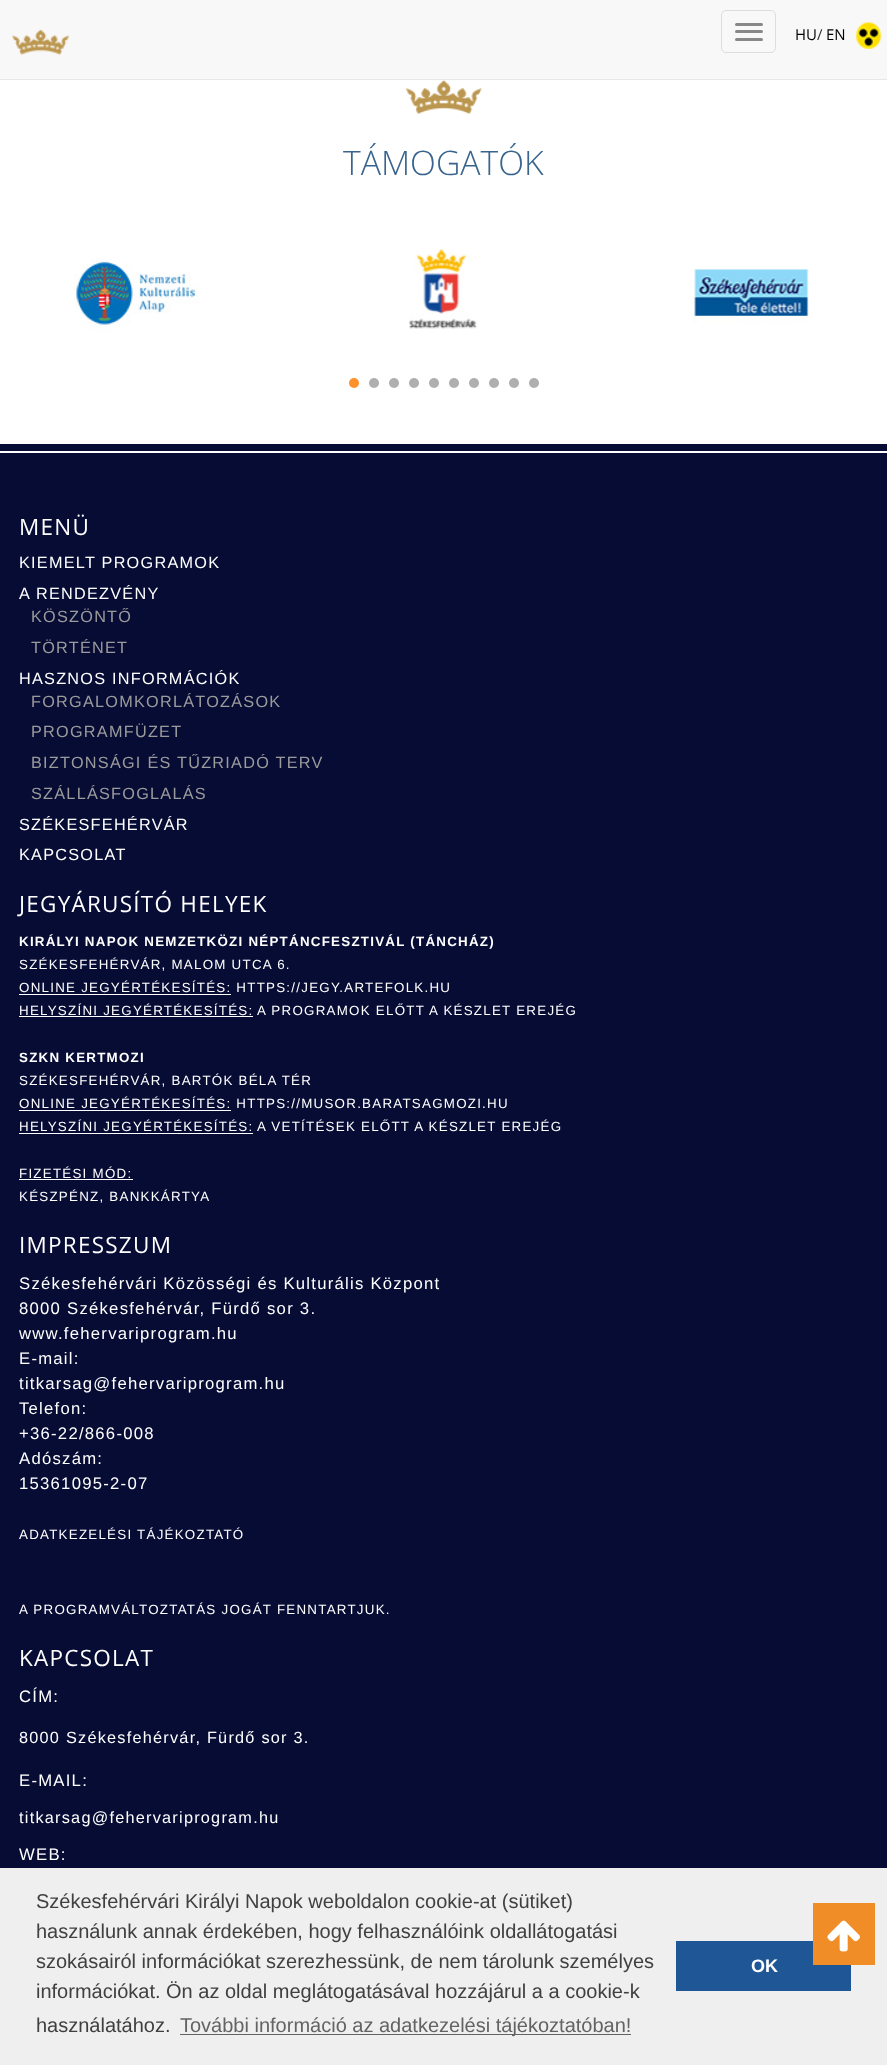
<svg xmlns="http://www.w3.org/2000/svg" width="887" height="2065">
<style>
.a{font:15px Open Sans;fill:#000}
.b{font:15px Open Sans;fill:#333}
.c{font:300 33.75px Open Sans;fill:#38648e}
.d{font:22.5px Open Sans;letter-spacing:1.25px;fill:#fff}
.e{font:16.25px Liberation Sans;letter-spacing:1.25px;fill:#fff}
.f{font:16.25px Liberation Sans;letter-spacing:1.25px;fill:#9c9b9c}
.g{font:bold 13.35px Liberation Sans;letter-spacing:1.25px;fill:#fff}
.h{font:13.35px Liberation Sans;letter-spacing:1.25px;fill:#fff}
.i{font:16.7px Liberation Sans;letter-spacing:1.25px;fill:#fff}
.j{font:20px Liberation Sans;fill:#404040}
.k{font:20px Liberation Sans;fill:#636363}
.l{font:bold 18px Liberation Sans;fill:#fff}
</style>
<rect width="100%" height="100%" fill="#fff"/>
<path fill="#e7e7e7" d="M0 79h887v1H0z"/>
<path fill="#f9f8f8" d="M0 0h887v79H0z"/>
<image href="1.png" x="12" y="29" width="57" height="27"/>
<rect fill="none" stroke="#ddd" x="721.5" y="10.5" width="54" height="42" rx="4.5"/>
<rect fill="#888" x="735" y="23" width="28" height="3" rx="1.5"/>
<rect fill="#888" x="735" y="30" width="28" height="3" rx="1.5"/>
<rect fill="#888" x="735" y="38" width="28" height="3" rx="1.5"/>
<image href="2.png" x="856" y="22" width="26" height="27"/>
<image href="3.png" x="406" y="80" width="76" height="35"/>
<image href="4.png" x="74" y="258" width="126" height="74"/>
<image href="5.png" x="409" y="249" width="68" height="80"/>
<image href="6.png" x="691" y="268" width="118" height="55"/>
<circle fill="#ff912a" cx="354" cy="383" r="5"/>
<circle fill="#afafaf" cx="374" cy="383" r="5"/>
<circle fill="#afafaf" cx="394" cy="383" r="5"/>
<circle fill="#afafaf" cx="414" cy="383" r="5"/>
<circle fill="#afafaf" cx="434" cy="383" r="5"/>
<circle fill="#afafaf" cx="454" cy="383" r="5"/>
<circle fill="#afafaf" cx="474" cy="383" r="5"/>
<circle fill="#afafaf" cx="494" cy="383" r="5"/>
<circle fill="#afafaf" cx="514" cy="383" r="5"/>
<circle fill="#afafaf" cx="534" cy="383" r="5"/>
<path fill="#070c35" d="M0 444h887v7H0z"/>
<path fill="#070c35" d="M0 453h887v1415H0z"/>
<path fill="#fff" d="M19 994h212v1H19z"/>
<path fill="#fff" d="M19 1016h234v1H19z"/>
<path fill="#fff" d="M19 1110h212v1H19z"/>
<path fill="#fff" d="M19 1133h234v1H19z"/>
<path fill="#fff" d="M19 1179h114v1H19z"/>
<path fill="#efefef" d="M0 1868h887v197H0z"/>
<path fill="#1f5796" d="M676 1941h175v50H676z"/>
<path fill="#f18d27" d="M813 1903h62v62H813z"/>
<image href="7.png" x="827" y="1920" width="33" height="32"/>
<path fill="#636363" d="M180 2034h451v1H180z"/>
<text class="a" x="795" y="40">HU</text>
<text class="b" x="817" y="40">/</text>
<text class="a" x="826" y="40">EN</text>
<text class="c" x="343" y="175">TÁMOGATÓK</text>
<text class="d" x="19" y="535">MENÜ</text>
<text class="e" x="19" y="568">KIEMELT PROGRAMOK</text>
<text class="e" x="19" y="599">A RENDEZVÉNY</text>
<text class="f" x="31" y="622">KÖSZÖNTŐ</text>
<text class="f" x="31" y="653">TÖRTÉNET</text>
<text class="e" x="19" y="684">HASZNOS INFORMÁCIÓK</text>
<text class="f" x="31" y="707">FORGALOMKORLÁTOZÁSOK</text>
<text class="f" x="31" y="737">PROGRAMFÜZET</text>
<text class="f" x="31" y="768">BIZTONSÁGI ÉS TŰZRIADÓ TERV</text>
<text class="f" x="31" y="799">SZÁLLÁSFOGLALÁS</text>
<text class="e" x="19" y="830">SZÉKESFEHÉRVÁR</text>
<text class="e" x="19" y="860">KAPCSOLAT</text>
<text class="d" x="19" y="912">JEGYÁRUSÍTÓ HELYEK</text>
<text class="g" x="19" y="946">KIRÁLYI NAPOK NEMZETKÖZI NÉPTÁNCFESZTIVÁL (TÁNCHÁZ)</text>
<text class="h" x="19" y="969">SZÉKESFEHÉRVÁR, MALOM UTCA 6.</text>
<text class="h" x="19" y="992">ONLINE JEGYÉRTÉKESÍTÉS: HTTPS://JEGY.ARTEFOLK.HU</text>
<text class="h" x="19" y="1015">HELYSZÍNI JEGYÉRTÉKESÍTÉS:</text>
<text class="h" x="257" y="1015">A PROGRAMOK ELŐTT A KÉSZLET EREJÉG</text>
<text class="g" x="19" y="1062">SZKN KERTMOZI</text>
<text class="h" x="19" y="1085">SZÉKESFEHÉRVÁR, BARTÓK BÉLA TÉR</text>
<text class="h" x="19" y="1108">ONLINE JEGYÉRTÉKESÍTÉS: HTTPS://MUSOR.BARATSAGMOZI.HU</text>
<text class="h" x="19" y="1131">HELYSZÍNI JEGYÉRTÉKESÍTÉS:</text>
<text class="h" x="257" y="1131">A VETÍTÉSEK ELŐTT A KÉSZLET EREJÉG</text>
<text class="h" x="19" y="1178">FIZETÉSI MÓD:</text>
<text class="h" x="19" y="1201">KÉSZPÉNZ, BANKKÁRTYA</text>
<text class="d" x="19" y="1253">IMPRESSZUM</text>
<text class="i" x="19" y="1289">Székesfehérvári Közösségi és Kulturális Központ</text>
<text class="i" x="19" y="1314">8000 Székesfehérvár, Fürdő sor 3.</text>
<text class="i" x="19" y="1339">www.fehervariprogram.hu</text>
<text class="i" x="19" y="1364">E-mail:</text>
<text class="i" x="19" y="1389">titkarsag@fehervariprogram.hu</text>
<text class="i" x="19" y="1414">Telefon:</text>
<text class="i" x="19" y="1439">+36-22/866-008</text>
<text class="i" x="19" y="1464">Adószám:</text>
<text class="i" x="19" y="1489">15361095-2-07</text>
<text class="h" x="19" y="1539">ADATKEZELÉSI TÁJÉKOZTATÓ</text>
<text class="h" x="19" y="1614">A PROGRAMVÁLTOZTATÁS JOGÁT FENNTARTJUK.</text>
<text class="d" x="19" y="1666">KAPCSOLAT</text>
<text class="i" x="19" y="1702">CÍM:</text>
<text class="e" x="19" y="1743">8000 Székesfehérvár, Fürdő sor 3.</text>
<text class="i" x="19" y="1786">E-MAIL:</text>
<text class="e" x="19" y="1823">titkarsag@fehervariprogram.hu</text>
<text class="i" x="19" y="1860">WEB:</text>
<text class="j" x="36" y="1908">Székesfehérvári Királyi Napok weboldalon cookie-at (sütiket)</text>
<text class="j" x="36" y="1938">használunk annak érdekében, hogy felhasználóink oldallátogatási</text>
<text class="j" x="36" y="1968">szokásairól információkat szerezhessünk, de nem tárolunk személyes</text>
<text class="j" x="36" y="1998">információkat. Ön az oldal meglátogatásával hozzájárul a a cookie-k</text>
<text class="j" x="36" y="2032">használatához.</text>
<text class="k" x="180" y="2032">További információ az adatkezelési tájékoztatóban!</text>
<text class="l" x="751" y="1972">OK</text>
</svg>
